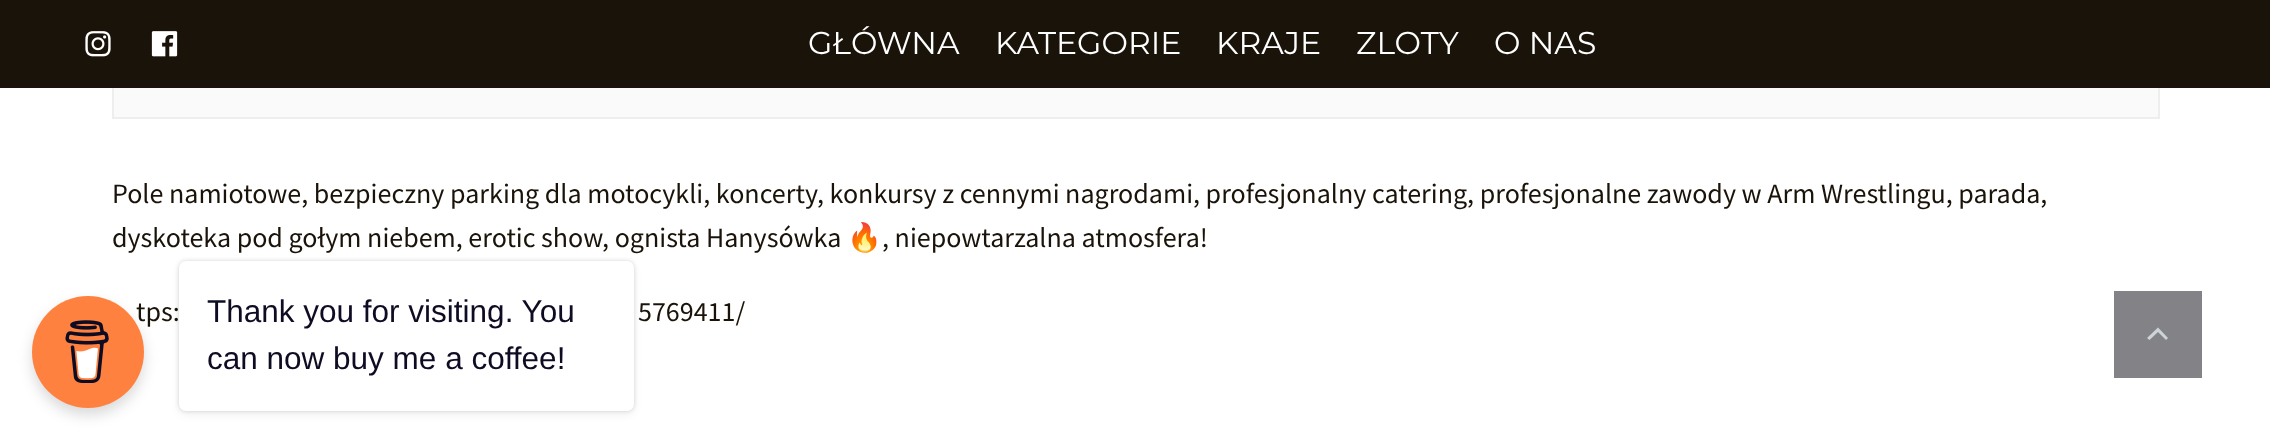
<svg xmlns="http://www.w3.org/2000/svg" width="2270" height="438">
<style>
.a{font:31.5px Montserrat;fill:#fff}
.b{font:28px Source Sans Pro;fill:#1a1309}
.c{font:28px Noto Color Emoji;fill:#1a1309}
.d{font:31.5px Liberation Sans;fill:#0d0c22}
</style>
<rect width="100%" height="100%" fill="#fff"/>
<path fill="#fafafa" d="M114 88h2044v29H114z"/>
<path fill="none" stroke="#eee" stroke-width="2" d="M113 -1h2046v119H113z"/>
<path fill="#1a1309" d="M0 0h2270v88H0z"/>
<image href="1.png" x="85" y="31" width="26" height="26"/>
<image href="2.png" x="151" y="31" width="27" height="26"/>
<path fill="#838387" d="M2114 291h88v87H2114z"/>
<path fill="#ccd4da" d="M2149.5 340l8.5-8l8 8l2-2l-10-10.5l-11 10.5z"/>
<rect fill="#00000026" filter="blur(7px)" x="32" y="303" width="112" height="112" rx="56"/>
<rect fill="#00000026" filter="blur(2px)" x="179" y="261" width="455" height="150" rx="7"/>
<rect fill="#0000000d" filter="blur(4.5px)" x="179" y="264" width="455" height="151" rx="7"/>
<rect fill="#fff" x="179" y="261" width="455" height="150" rx="7"/>
<text class="a" x="808" y="54">GŁÓWNA</text>
<text class="a" x="995" y="54">KATEGORIE</text>
<text class="a" x="1216" y="54">KRAJE</text>
<text class="a" x="1356" y="54">ZLOTY</text>
<text class="a" x="1494" y="54">O NAS</text>
<text class="b" x="112" y="203">Pole namiotowe, bezpieczny parking dla motocykli, koncerty, konkursy z cennymi nagrodami, profesjonalny catering, profesjonalne zawody w Arm Wrestlingu, parada,</text>
<text class="b" x="112" y="247">dyskoteka pod gołym niebem, erotic show, ognista Hanysówka</text>
<text class="c" x="847" y="247">🔥</text>
<text class="b" x="882" y="247">, niepowtarzalna atmosfera!</text>
<text class="b" x="136" y="321">tps:</text>
<text class="b" x="638" y="321">5769411/</text>
<circle fill="#ff813f" cx="88" cy="352" r="56"/>
<image href="3.png" x="65" y="320" width="44" height="63"/>
<text class="d" x="207" y="322">Thank you for visiting. You</text>
<text class="d" x="207" y="369">can now buy me a coffee!</text>
</svg>
